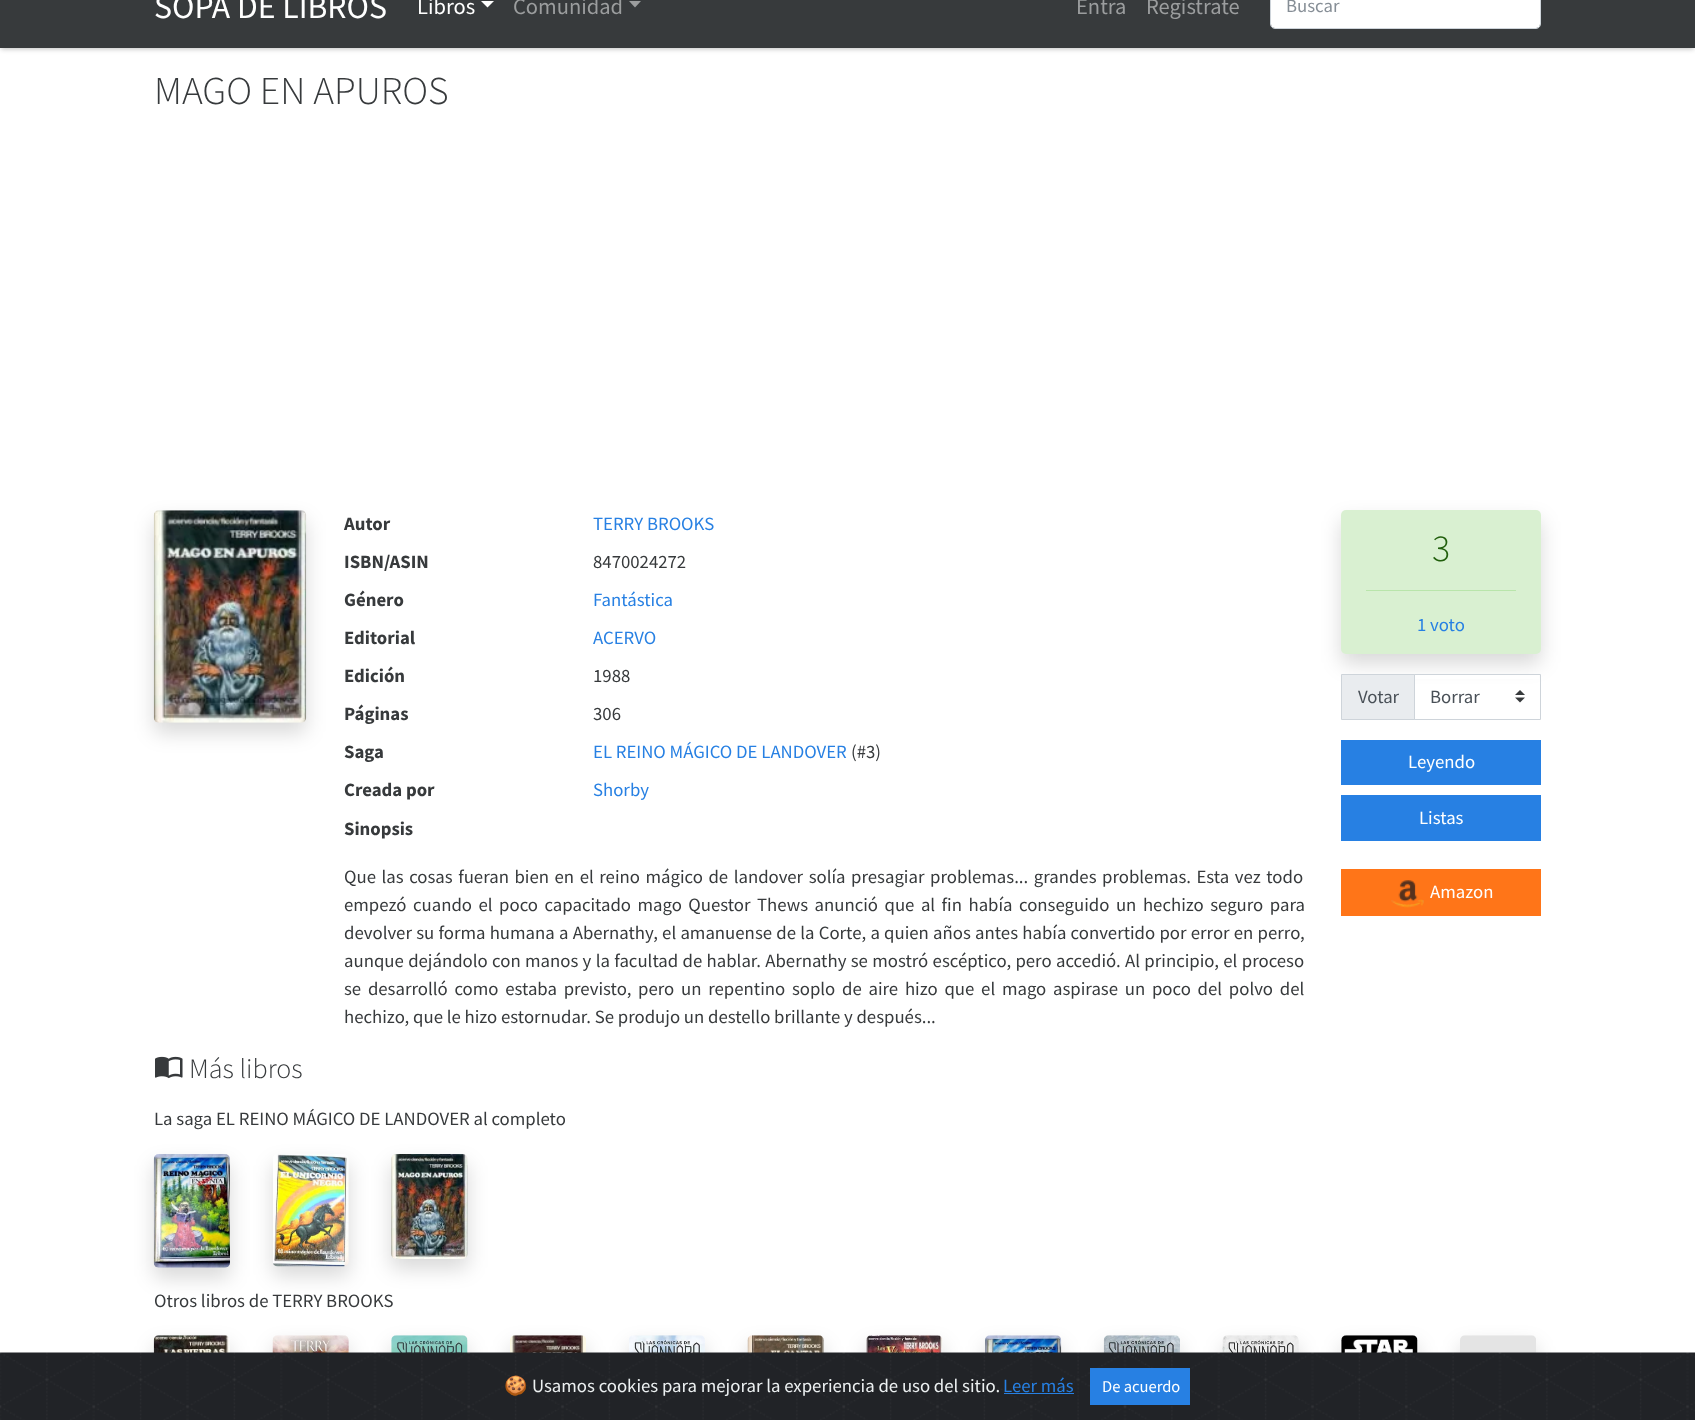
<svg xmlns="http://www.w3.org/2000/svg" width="1695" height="1420">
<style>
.a{font:33.75px Source Sans Pro;fill:#fff}
.b{font:22.5px Source Sans Pro;fill:#fff}
.c{font:22.5px Source Sans Pro;fill:#9b9d9e}
.d{font:18.75px Source Sans Pro;fill:#868e96}
.e{font:300 39.5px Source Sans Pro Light;fill:#373a3c}
.f{font:bold 18.75px Source Sans Pro;fill:#373a3c}
.g{font:18.75px Source Sans Pro;fill:#2780e3}
.h{font:18.75px Source Sans Pro;fill:#373a3c}
.i{font:300 38px Source Sans Pro Light;fill:#215f0c}
.j{font:18.75px Source Sans Pro;fill:#495057}
.k{font:18.75px Source Sans Pro;fill:#fff}
.l{font:300 28px Source Sans Pro Light;fill:#373a3c}
.m{font:18.75px Noto Color Emoji;fill:#ecf0f1}
.n{font:18.75px Source Sans Pro;fill:#ecf0f1}
.o{font:16.5px Source Sans Pro;fill:#fff}
</style>
<rect width="100%" height="100%" fill="#fff"/>
<path fill="#00000040" filter="blur(2.5px)" d="M1 -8h1693v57H1z"/>
<path fill="#373a3c" d="M0 0h1695v48H0z"/>
<path fill="#fff" d="M481 1h13l-6.5 6.5z"/>
<path fill="#9b9d9e" d="M629 1h12l-6 6.5z"/>
<rect fill="#fff" x="1271" y="-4" width="269" height="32" rx="4"/>
<rect fill="none" stroke="#ced4da" x="1270.5" y="-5.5" width="270" height="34" rx="4.5"/>
<rect fill="#00000026" filter="blur(10px)" x="154" y="520" width="152" height="213" rx="5"/>
<image href="1.png" x="153" y="510" width="154" height="213"/>
<rect fill="#00000026" filter="blur(10px)" x="1341" y="520" width="200" height="144" rx="5"/>
<rect fill="#d9f0d1" x="1341" y="510" width="200" height="144" rx="5"/>
<path fill="#b9e5ab" d="M1366 590h150v1H1366z"/>
<path fill="#e9ecef" stroke="#ced4da" d="M1341.5 674.5h73v45H1341.5z"/>
<path fill="#fff" d="M1415 675h124v4H1415z"/>
<image href="2.png" x="1515" y="690" width="10" height="13"/>
<path fill="none" stroke="#ced4da" d="M1414.5 674.5h126v45H1414.5z"/>
<path fill="#2780e3" d="M1341 740h200v45H1341z"/>
<path fill="#2780e3" d="M1341 795h200v46H1341z"/>
<path fill="#ff7518" d="M1341 869h200v47H1341z"/>
<image href="3.png" x="1391" y="880" width="33" height="28"/>
<image href="4.png" x="155" y="1056" width="28" height="23"/>
<rect fill="#00000026" filter="blur(10px)" x="154" y="1164" width="76" height="114" rx="5"/>
<image href="5.png" x="153" y="1154" width="77" height="114"/>
<rect fill="#00000026" filter="blur(10px)" x="273" y="1164" width="76" height="112" rx="5"/>
<image href="6.png" x="273" y="1154" width="76" height="113"/>
<rect fill="#00000026" filter="blur(10px)" x="391" y="1164" width="77" height="105" rx="5"/>
<image href="7.png" x="391" y="1154" width="77" height="105"/>
<rect fill="#00000026" filter="blur(10px)" x="154" y="1345" width="76" height="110" rx="5"/>
<image href="8.png" x="153" y="1335" width="77" height="18"/>
<rect fill="#00000026" filter="blur(10px)" x="273" y="1345" width="76" height="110" rx="5"/>
<image href="9.png" x="272" y="1335" width="77" height="18"/>
<rect fill="#00000026" filter="blur(10px)" x="391" y="1345" width="77" height="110" rx="5"/>
<image href="10.png" x="391" y="1335" width="77" height="18"/>
<rect fill="#00000026" filter="blur(10px)" x="510" y="1345" width="76" height="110" rx="5"/>
<image href="11.png" x="510" y="1335" width="76" height="18"/>
<rect fill="#00000026" filter="blur(10px)" x="629" y="1345" width="76" height="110" rx="5"/>
<image href="12.png" x="628" y="1335" width="77" height="18"/>
<rect fill="#00000026" filter="blur(10px)" x="748" y="1345" width="76" height="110" rx="5"/>
<image href="13.png" x="747" y="1335" width="77" height="18"/>
<rect fill="#00000026" filter="blur(10px)" x="866" y="1345" width="77" height="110" rx="5"/>
<image href="14.png" x="866" y="1335" width="77" height="18"/>
<rect fill="#00000026" filter="blur(10px)" x="985" y="1345" width="76" height="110" rx="5"/>
<image href="15.png" x="985" y="1335" width="77" height="18"/>
<rect fill="#00000026" filter="blur(10px)" x="1104" y="1345" width="76" height="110" rx="5"/>
<image href="16.png" x="1103" y="1335" width="77" height="18"/>
<rect fill="#00000026" filter="blur(10px)" x="1223" y="1345" width="76" height="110" rx="5"/>
<image href="17.png" x="1222" y="1335" width="77" height="18"/>
<rect fill="#00000026" filter="blur(10px)" x="1341" y="1345" width="77" height="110" rx="5"/>
<image href="18.png" x="1341" y="1335" width="77" height="18"/>
<rect fill="#00000026" filter="blur(10px)" x="1460" y="1345" width="76" height="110" rx="5"/>
<image href="19.png" x="1460" y="1335" width="76" height="18"/>
<image href="20.png" x="0" y="1352" width="1695" height="68"/>
<path fill="#2780e3" d="M1004 1393h70v1H1004z"/>
<path fill="#2780e3" d="M1090 1368h100v37H1090z"/>
<text class="a" x="154" y="18">SOPA DE LIBROS</text>
<text class="b" x="417" y="14">Libros</text>
<text class="c" x="513" y="14">Comunidad</text>
<text class="c" x="1076" y="14">Entra</text>
<text class="c" x="1146" y="14">Registrate</text>
<text class="d" x="1286" y="12">Buscar</text>
<text class="e" x="154" y="104">MAGO EN APUROS</text>
<text class="f" x="344" y="530">Autor</text>
<text class="g" x="593" y="530">TERRY BROOKS</text>
<text class="f" x="344" y="568">ISBN/ASIN</text>
<text class="h" x="593" y="568">8470024272</text>
<text class="f" x="344" y="606">Género</text>
<text class="g" x="593" y="606">Fantástica</text>
<text class="f" x="344" y="644">Editorial</text>
<text class="g" x="593" y="644">ACERVO</text>
<text class="f" x="344" y="682">Edición</text>
<text class="h" x="593" y="682">1988</text>
<text class="f" x="344" y="720">Páginas</text>
<text class="h" x="593" y="720">306</text>
<text class="f" x="344" y="758">Saga</text>
<text class="g" x="593" y="758">EL REINO MÁGICO DE LANDOVER</text>
<text class="h" x="851" y="758">(#3)</text>
<text class="f" x="344" y="796">Creada por</text>
<text class="g" x="593" y="796">Shorby</text>
<text class="f" x="344" y="835">Sinopsis</text>
<text class="h" x="344" y="883" word-spacing="1.8">Que las cosas fueran bien en el reino mágico de landover solía presagiar problemas... grandes problemas. Esta vez todo</text>
<text class="h" x="344" y="911" word-spacing="2.75">empezó cuando el poco capacitado mago Questor Thews anunció que al fin había conseguido un hechizo seguro para</text>
<text class="h" x="344" y="939" word-spacing="0.5">devolver su forma humana a Abernathy, el amanuense de la Corte, a quien años antes había convertido por error en perro,</text>
<text class="h" x="344" y="967" word-spacing="0.6">aunque dejándolo con manos y la facultad de hablar. Abernathy se mostró escéptico, pero accedió. Al principio, el proceso</text>
<text class="h" x="344" y="995" word-spacing="3">se desarrolló como estaba previsto, pero un repentino soplo de aire hizo que el mago aspirase un poco del polvo del</text>
<text class="h" x="344" y="1023">hechizo, que le hizo estornudar. Se produjo un destello brillante y después...</text>
<text class="i" x="1432" y="561">3</text>
<text class="g" x="1417" y="631">1 voto</text>
<text class="j" x="1358" y="703">Votar</text>
<text class="j" x="1430" y="703">Borrar</text>
<text class="k" x="1408" y="768">Leyendo</text>
<text class="k" x="1419" y="824">Listas</text>
<text class="k" x="1430" y="898">Amazon</text>
<text class="l" x="189" y="1078">Más libros</text>
<text class="h" x="154" y="1125">La saga EL REINO MÁGICO DE LANDOVER al completo</text>
<text class="h" x="154" y="1307">Otros libros de TERRY BROOKS</text>
<text class="m" x="504" y="1392">🍪</text>
<text class="n" x="532" y="1392">Usamos cookies para mejorar la experiencia de uso del sitio.</text>
<text class="g" x="1003" y="1392">Leer más</text>
<text class="o" x="1102" y="1392">De acuerdo</text>
</svg>
